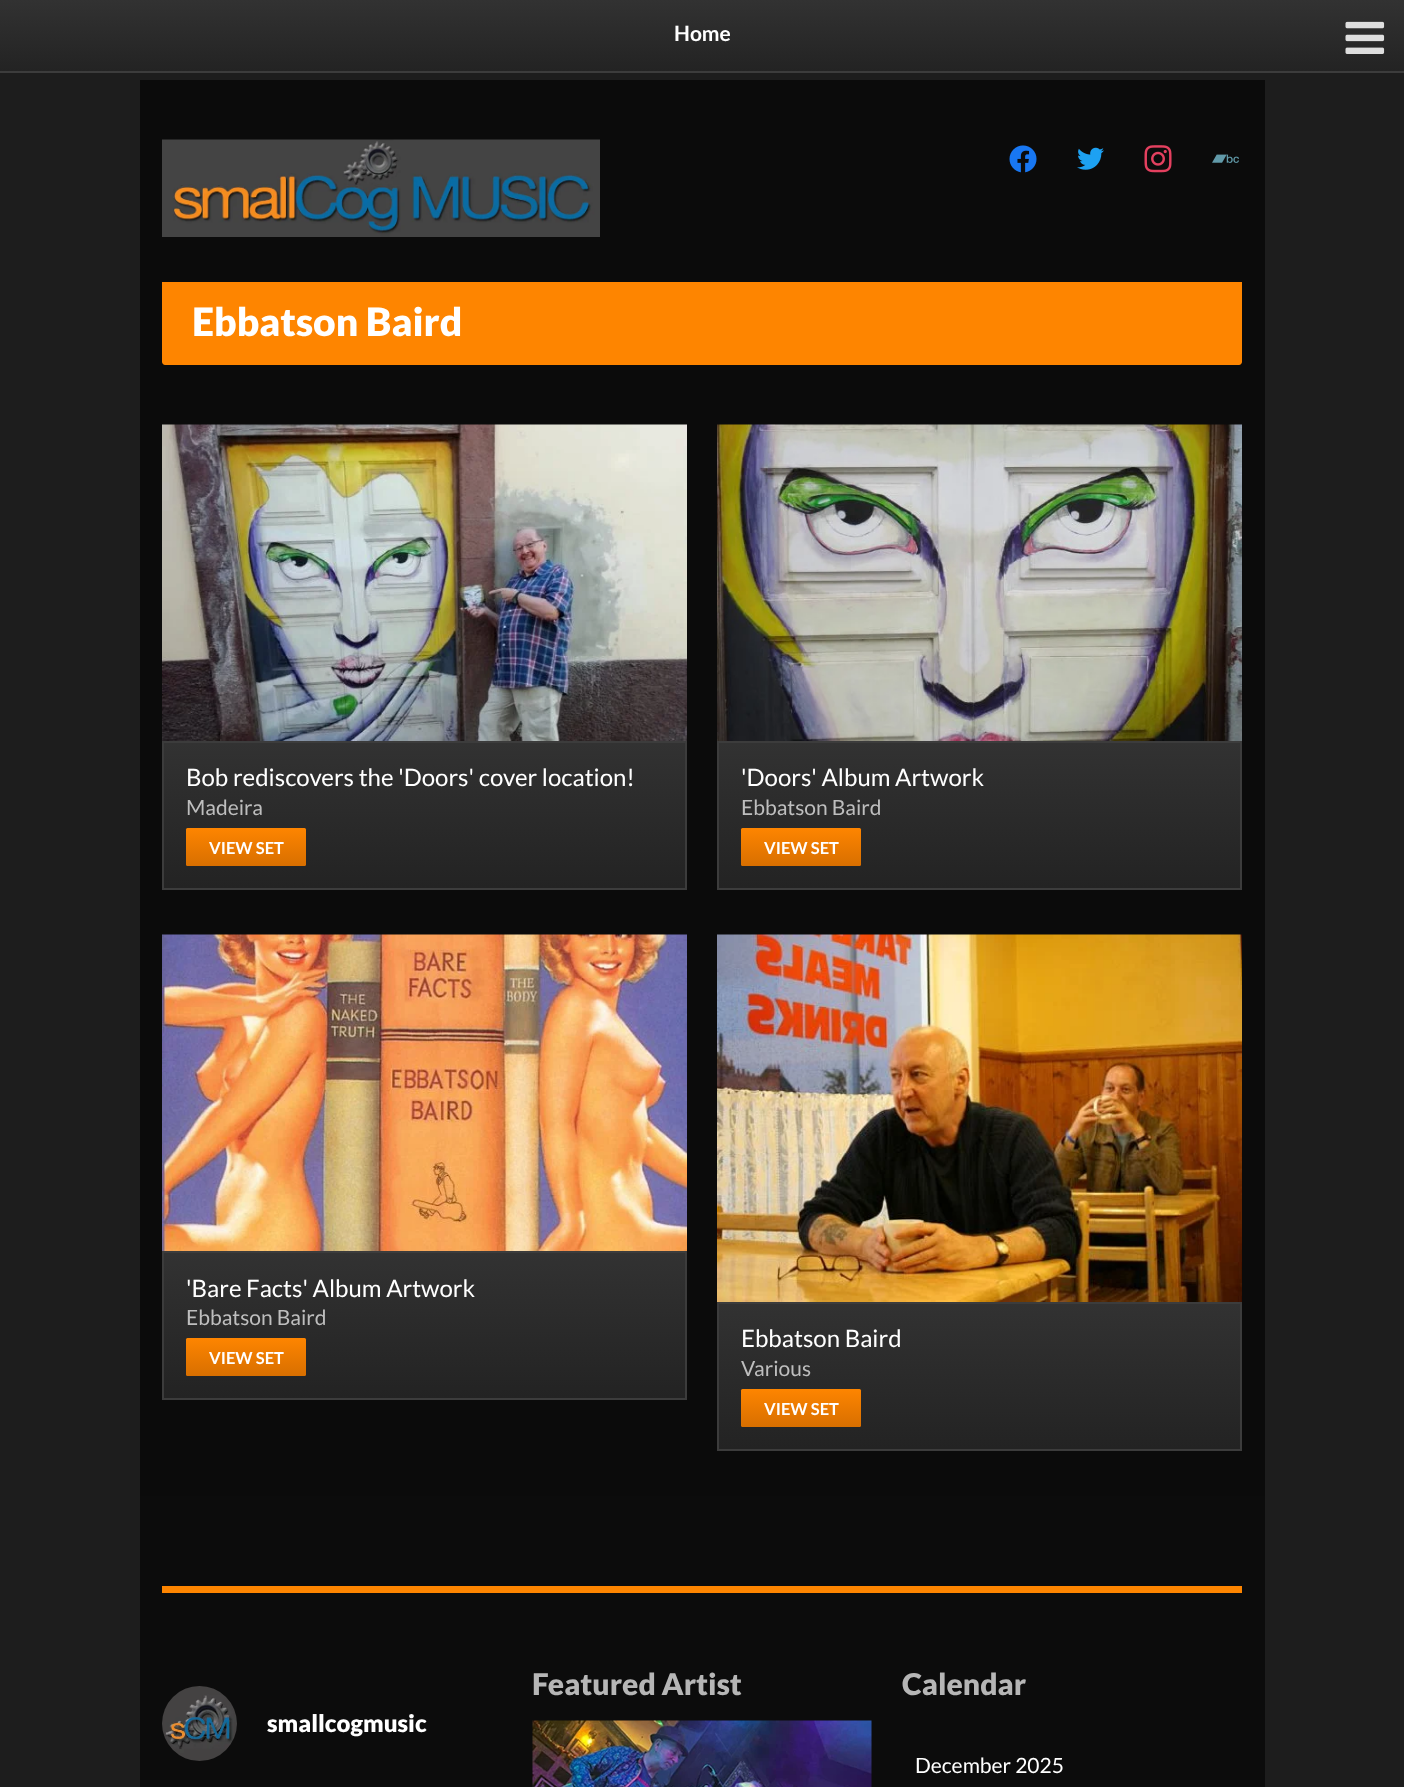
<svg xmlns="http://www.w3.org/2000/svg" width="1404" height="1787">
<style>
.a{font:bold 21px Lato;fill:#fff}
.b{font:900 39px Lato;fill:#fff}
.c{font:24px Lato;fill:#fff}
.d{font:21px Lato;fill:#bebebe}
.e{font:bold 16.5px Lato;fill:#fff}
.f{font:900 24px Lato;fill:#fff}
.g{font:900 30px Lato;fill:#b6b6b6}
.h{font:21px Lato;fill:#fff}
</style>
<defs>
<linearGradient id="g1" gradientUnits="userSpaceOnUse" x1="702" y1="0" x2="702" y2="71"><stop offset="0" stop-color="#323232"/><stop offset="1" stop-color="#232323"/></linearGradient>
<linearGradient id="g2" gradientUnits="userSpaceOnUse" x1="425" y1="743" x2="425" y2="888"><stop offset="0" stop-color="#323232"/><stop offset="1" stop-color="#232323"/></linearGradient>
<linearGradient id="g3" gradientUnits="userSpaceOnUse" x1="246" y1="828" x2="246" y2="866"><stop offset="0" stop-color="#fe8500"/><stop offset="1" stop-color="#d86f00"/></linearGradient>
<linearGradient id="g4" gradientUnits="userSpaceOnUse" x1="980" y1="743" x2="980" y2="888"><stop offset="0" stop-color="#323232"/><stop offset="1" stop-color="#232323"/></linearGradient>
<linearGradient id="g5" gradientUnits="userSpaceOnUse" x1="801" y1="828" x2="801" y2="866"><stop offset="0" stop-color="#fe8500"/><stop offset="1" stop-color="#d86f00"/></linearGradient>
<linearGradient id="g6" gradientUnits="userSpaceOnUse" x1="425" y1="1253" x2="425" y2="1398"><stop offset="0" stop-color="#323232"/><stop offset="1" stop-color="#232323"/></linearGradient>
<linearGradient id="g7" gradientUnits="userSpaceOnUse" x1="246" y1="1338" x2="246" y2="1376"><stop offset="0" stop-color="#fe8500"/><stop offset="1" stop-color="#d86f00"/></linearGradient>
<linearGradient id="g8" gradientUnits="userSpaceOnUse" x1="980" y1="1304" x2="980" y2="1449"><stop offset="0" stop-color="#323232"/><stop offset="1" stop-color="#232323"/></linearGradient>
<linearGradient id="g9" gradientUnits="userSpaceOnUse" x1="801" y1="1389" x2="801" y2="1427"><stop offset="0" stop-color="#fe8500"/><stop offset="1" stop-color="#d86f00"/></linearGradient>
</defs>
<rect width="100%" height="100%" fill="#1d1d1d"/>
<path fill="url(#g1)" d="M0 0h1404v71H0z"/>
<path fill="#3c3c3c" d="M0 71h1404v2H0z"/>
<image href="1.png" x="1345" y="21" width="40" height="33"/>
<path fill="#0b0b0b" d="M140 80h1125v1416H140z"/>
<image href="2.png" x="162" y="139" width="438" height="98"/>
<image href="3.png" x="1009" y="145" width="28" height="28"/>
<image href="4.png" x="1077" y="147" width="27" height="23"/>
<image href="5.png" x="1144" y="145" width="28" height="28"/>
<image href="6.png" x="1212" y="154" width="27" height="9"/>
<path fill="#fe8500" d="M162 282h1080v80c0 1.5-1.5 3-3 3h-1074c-1.5 0-3-1.5-3-3z"/>
<image href="7.png" x="162" y="424" width="525" height="317"/>
<path fill="url(#g2)" d="M164 743h521v145H164z"/>
<path fill="none" stroke="#3c3c3c" stroke-width="2" d="M163 742h523v147H163z"/>
<rect fill="url(#g3)" x="186" y="828" width="120" height="38" rx="1.5"/>
<image href="8.png" x="717" y="424" width="525" height="317"/>
<path fill="url(#g4)" d="M719 743h521v145H719z"/>
<path fill="none" stroke="#3c3c3c" stroke-width="2" d="M718 742h523v147H718z"/>
<rect fill="url(#g5)" x="741" y="828" width="120" height="38" rx="1.5"/>
<image href="9.png" x="162" y="934" width="525" height="317"/>
<path fill="url(#g6)" d="M164 1253h521v145H164z"/>
<path fill="none" stroke="#3c3c3c" stroke-width="2" d="M163 1252h523v147H163z"/>
<rect fill="url(#g7)" x="186" y="1338" width="120" height="38" rx="1.5"/>
<image href="10.png" x="717" y="934" width="525" height="368"/>
<path fill="url(#g8)" d="M719 1304h521v145H719z"/>
<path fill="none" stroke="#3c3c3c" stroke-width="2" d="M718 1303h523v147H718z"/>
<rect fill="url(#g9)" x="741" y="1389" width="120" height="38" rx="1.5"/>
<path fill="#0c0c0c" d="M140 1496h1125v291H140z"/>
<path fill="#fe8500" d="M162 1586h1080v7H162z"/>
<image href="11.png" x="162" y="1686" width="75" height="75"/>
<image href="12.png" x="532" y="1720" width="340" height="67"/>
<text class="a" x="674" y="41">Home</text>
<text class="b" x="192" y="336">Ebbatson Baird</text>
<text class="c" x="186" y="786">Bob rediscovers the 'Doors' cover location!</text>
<text class="d" x="186" y="815">Madeira</text>
<text class="e" x="209" y="854">VIEW SET</text>
<text class="c" x="741" y="786">'Doors' Album Artwork</text>
<text class="d" x="741" y="815">Ebbatson Baird</text>
<text class="e" x="764" y="854">VIEW SET</text>
<text class="c" x="186" y="1297">'Bare Facts' Album Artwork</text>
<text class="d" x="186" y="1325">Ebbatson Baird</text>
<text class="e" x="209" y="1364">VIEW SET</text>
<text class="c" x="741" y="1347">Ebbatson Baird</text>
<text class="d" x="741" y="1376">Various</text>
<text class="e" x="764" y="1415">VIEW SET</text>
<text class="f" x="267" y="1732">smallcogmusic</text>
<text class="g" x="532" y="1695">Featured Artist</text>
<text class="g" x="902" y="1695">Calendar</text>
<text class="h" x="915" y="1773">December 2025</text>
</svg>
